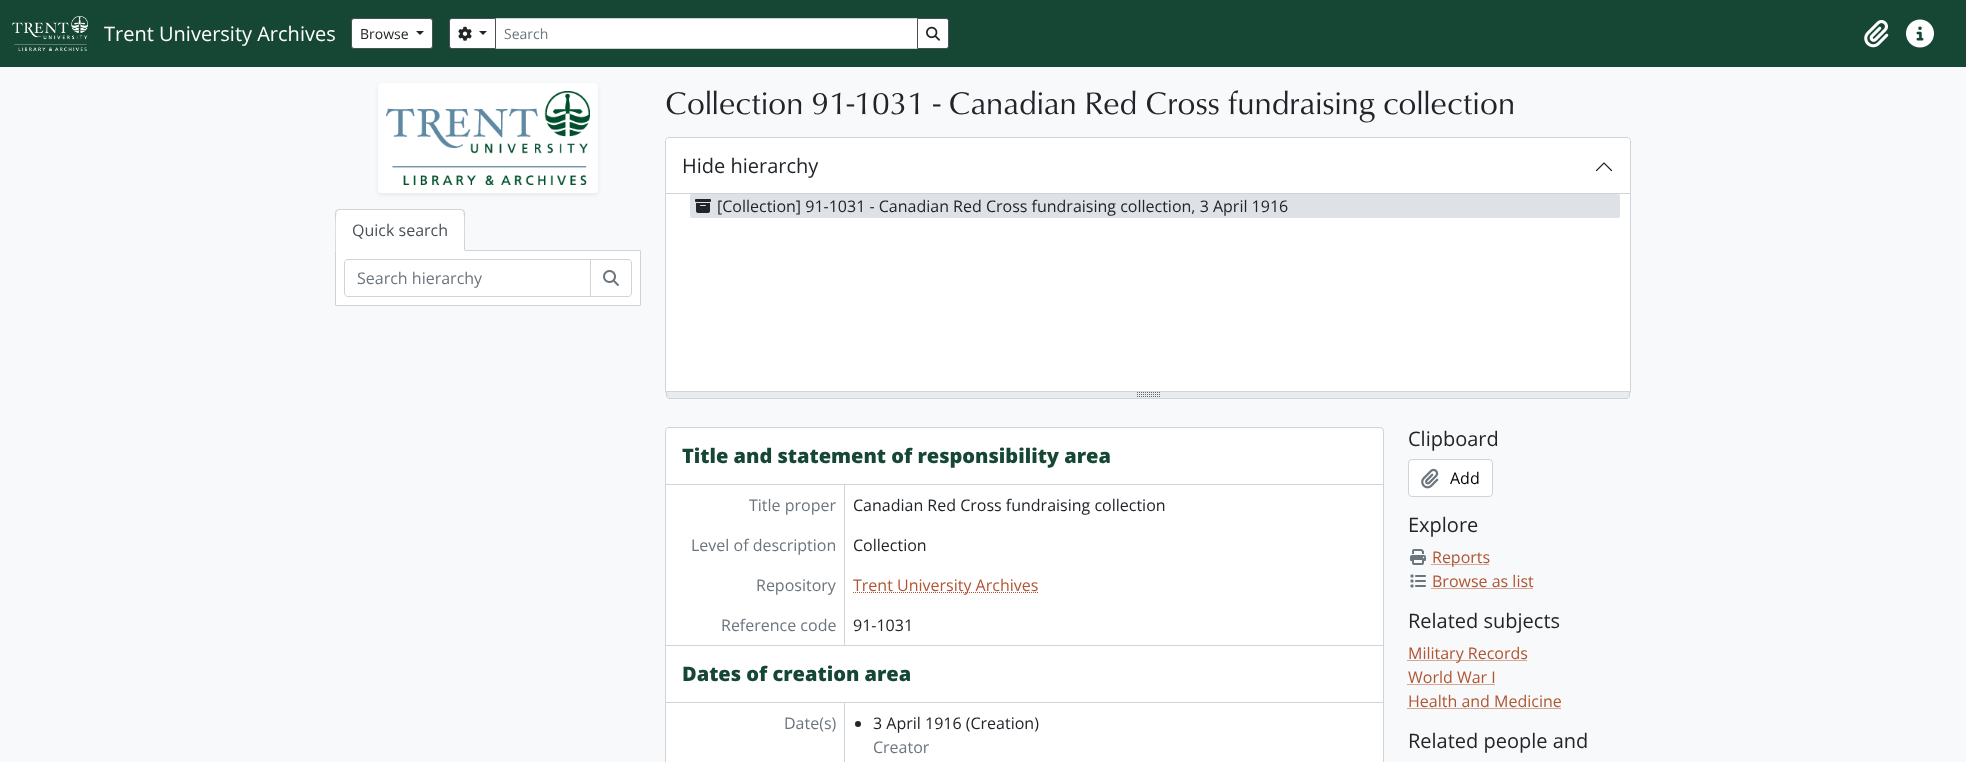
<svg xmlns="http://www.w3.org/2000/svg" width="1966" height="762">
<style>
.a{font:20px Open Sans;fill:#fff}
.b{font:14px Open Sans;fill:#212529}
.c{font:14px Open Sans;fill:#6c757d}
.d{font:16px Open Sans;fill:#495057}
.e{font:16px Open Sans;fill:#6c757d}
.f{font:32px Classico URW;fill:#212529}
.g{font:20px Open Sans;fill:#212529}
.h{font:16px Open Sans;fill:#212529}
.i{font:800 20px Open Sans;fill:#154734}
.j{font:16px Open Sans;fill:#b15533}
.k{font:16px Open Sans;fill:#000}
</style>
<rect width="100%" height="100%" fill="#f8f9fa"/>
<path fill="#154734" d="M0 0h1966v67H0z"/>
<image href="1.png" x="12" y="16" width="76" height="35"/>
<rect fill="#fff" stroke="#495057" x="351.5" y="18.5" width="81" height="30" rx="2.5"/>
<path fill="#212529" d="M416 31h8l-4 4z"/>
<path fill="#fff" stroke="#ced4da" d="M495.5 18.5h422v30H495.5z"/>
<path fill="#fff" stroke="#495057" d="M452 18.5h43.5v30h-43.5c-1.5 0-2.5-1-2.5-2.5v-25c0-1.5 1-2.5 2.5-2.5z"/>
<image href="2.png" x="458" y="26" width="14" height="15"/>
<path fill="#212529" d="M479 31h8l-4 4z"/>
<path fill="#fff" stroke="#495057" d="M917.5 18.5h28.5c1.5 0 2.5 1 2.5 2.5v25c0 1.5-1 2.5-2.5 2.5h-28.5z"/>
<image href="3.png" x="926" y="26" width="14" height="15"/>
<image href="4.png" x="1864" y="20" width="25" height="28"/>
<image href="5.png" x="1906" y="19" width="28" height="29"/>
<rect fill="#00000012" filter="blur(2px)" x="378" y="85" width="220" height="110" rx="4"/>
<rect fill="#fff" x="378" y="83" width="220" height="110" rx="4"/>
<image href="6.png" x="386" y="91" width="204" height="94"/>
<path fill="#fff" stroke="#ced4da" d="M335.5 250.5h305v55H335.5z"/>
<path fill="#fff" d="M339 209h122c2 0 4 2 4 4v38h-130v-38c0-2 2-4 4-4z"/>
<path fill="#ced4da" d="M339 209l-3 1l1 1l2-1h122l2 1l1-1l-3-1z"/>
<path fill="#ced4da" d="M465 251v-38c0-1-1-2-1-3l-1 1c2 2 1 34 1 39z"/>
<path fill="#fff" d="M465 251l-1-1h-128l-1 1z"/>
<path fill="#ced4da" d="M335 251l1-1c0-5-1-37 1-39l-1-1l-1 3z"/>
<path fill="none" stroke="#ced4da" d="M348 259.5h242.5v37h-242.5c-2 0-3.5-1.5-3.5-3.5v-30c0-2 1.5-3.5 3.5-3.5z"/>
<path fill="#fff" stroke="#ced4da" d="M590.5 259.5h37.5c2 0 3.5 1.5 3.5 3.5v30c0 2-1.5 3.5-3.5 3.5h-37.5z"/>
<image href="7.png" x="603" y="270" width="16" height="16"/>
<rect fill="#fff" stroke="#ced4da" x="665.5" y="137.5" width="965" height="257" rx="3.5"/>
<path fill="#fff" d="M669 138h958c1.5 0 3 1.5 3 3v53h-964v-53c0-1.5 1.5-3 3-3z"/>
<path fill="#ced4da" d="M666 193h964v1H666z"/>
<image href="8.png" x="1595" y="162" width="18" height="10"/>
<rect fill="#dee2e6" x="690" y="194" width="930" height="24" rx="2"/>
<image href="9.png" x="695" y="199" width="16" height="14"/>
<path fill="#e9ecef" d="M666 391h964v4c0 2-2 4-4 4h-956c-2 0-4-2-4-4z"/>
<image href="10.png" x="1137" y="392" width="23" height="5"/>
<path fill="none" stroke="#ced4da" d="M666.5 391.5h963v3.5c0 2-1.5 3.5-3.5 3.5h-956c-2 0-3.5-1.5-3.5-3.5z"/>
<rect fill="#fff" stroke="#ced4da" x="665.5" y="427.5" width="718" height="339" rx="3.5"/>
<path fill="#ced4da" d="M666 645h717v1H666z"/>
<path fill="#ced4da" d="M666 484h717v1H666z"/>
<path fill="#ced4da" d="M844 485h1v160H844z"/>
<path fill="none" stroke="#b15533" stroke-dasharray="1 1" d="M853 592.5h185.5"/>
<path fill="#ced4da" d="M666 702h717v1H666z"/>
<path fill="#ced4da" d="M844 703h1v59H844z"/>
<circle fill="#212529" cx="858" cy="724" r="3"/>
<rect fill="#fff" stroke="#ced4da" x="1408.5" y="459.5" width="84" height="37" rx="3.5"/>
<image href="11.png" x="1421" y="468" width="18" height="21"/>
<image href="12.png" x="1410" y="549" width="16" height="16"/>
<path fill="none" stroke="#b15533" stroke-dasharray="1 1" d="M1431.5 564.5h58"/>
<image href="13.png" x="1410" y="574" width="16" height="14"/>
<path fill="none" stroke="#b15533" stroke-dasharray="1 1" d="M1431.5 588.5h101.5"/>
<path fill="none" stroke="#b15533" stroke-dasharray="1 1" d="M1407.5 660.5h120"/>
<path fill="none" stroke="#b15533" stroke-dasharray="1 1" d="M1407.5 684.5h87.5"/>
<path fill="none" stroke="#b15533" stroke-dasharray="1 1" d="M1407.5 708.5h153.5"/>
<text class="a" x="104" y="41">Trent University Archives</text>
<text class="b" x="360" y="39">Browse</text>
<text class="c" x="504" y="39">Search</text>
<text class="d" x="352" y="236">Quick search</text>
<text class="e" x="357" y="284">Search hierarchy</text>
<text class="f" x="665" y="114">Collection 91-1031 - Canadian Red Cross fundraising collection</text>
<text class="g" x="682" y="173">Hide hierarchy</text>
<text class="h" x="717" y="212">[Collection] 91-1031 - Canadian Red Cross fundraising collection, 3 April 1916</text>
<text class="i" x="682" y="463">Title and statement of responsibility area</text>
<text class="e" x="749" y="511">Title proper</text>
<text class="h" x="853" y="511">Canadian Red Cross fundraising collection</text>
<text class="e" x="691" y="551">Level of description</text>
<text class="h" x="853" y="551">Collection</text>
<text class="e" x="756" y="591">Repository</text>
<text class="j" x="853" y="591">Trent University Archives</text>
<text class="e" x="721" y="631">Reference code</text>
<text class="h" x="853" y="631">91-1031</text>
<text class="i" x="682" y="681">Dates of creation area</text>
<text class="e" x="784" y="729">Date(s)</text>
<text class="h" x="873" y="729">3 April 1916 (Creation)</text>
<text class="e" x="873" y="753">Creator</text>
<text class="g" x="1408" y="446">Clipboard</text>
<text class="k" x="1450" y="484">Add</text>
<text class="g" x="1408" y="532">Explore</text>
<text class="j" x="1432" y="563">Reports</text>
<text class="j" x="1432" y="587">Browse as list</text>
<text class="g" x="1408" y="628">Related subjects</text>
<text class="j" x="1408" y="659">Military Records</text>
<text class="j" x="1408" y="683">World War I</text>
<text class="j" x="1408" y="707">Health and Medicine</text>
<text class="g" x="1408" y="748">Related people and</text>
</svg>
